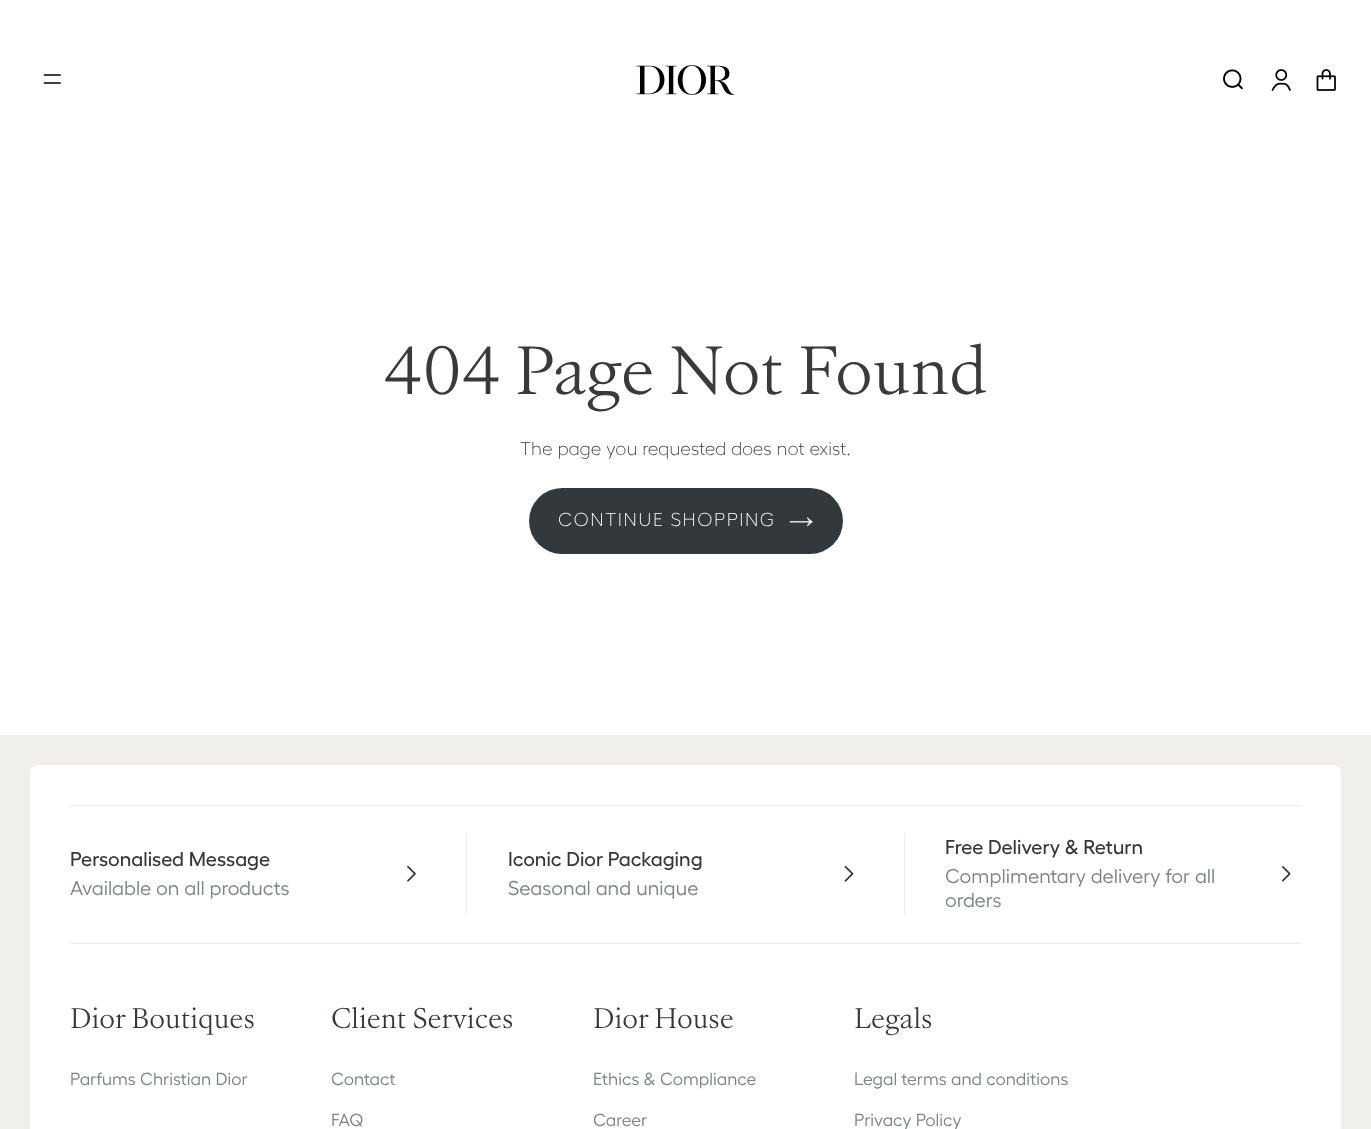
<svg xmlns="http://www.w3.org/2000/svg" width="1371" height="1129">
<style>
.a{font:300 60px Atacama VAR;fill:#3a3a3a}
.b{font:300 18.75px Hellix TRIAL;fill:#3a3a3a}
.c{font:300 18.75px Hellix TRIAL;letter-spacing:1.5px;fill:#fff}
.d{font:500 20px Hellix TRIAL;fill:#33383c}
.e{font:20px Hellix TRIAL;fill:#7b8487}
.f{font:300 25px Atacama VAR;fill:#33383c}
.g{font:17.5px Hellix TRIAL;fill:#7b8487}
</style>
<rect width="100%" height="100%" fill="#fff"/>
<path fill="none" stroke="#000" stroke-width="1.7" stroke-linecap="round" d="M44.5 75h15.5m-15.5 8h15.5"/>
<image href="1.png" x="636" y="65" width="99" height="30"/>
<image href="2.png" x="1223" y="69" width="20" height="21"/>
<image href="3.png" x="1271" y="69" width="20" height="22"/>
<image href="4.png" x="1316" y="69" width="20" height="22"/>
<rect fill="#33383c" x="529" y="488" width="314" height="66" rx="33"/>
<image href="5.png" x="789" y="517" width="24" height="10"/>
<path fill="#f1efea" d="M0 735h1371v394H0z"/>
<rect fill="#fff" x="30" y="765" width="1311" height="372" rx="8"/>
<path fill="#ebebec" d="M70 805h1231v1H70z"/>
<path fill="#ebebec" d="M70 943h1231v1H70z"/>
<image href="6.png" x="407" y="865" width="9" height="17"/>
<path fill="#ebebec" d="M466 833h1v82H466z"/>
<image href="7.png" x="844" y="865" width="10" height="17"/>
<path fill="#ebebec" d="M904 833h1v82H904z"/>
<image href="8.png" x="1282" y="866" width="9" height="16"/>
<text class="a" x="384" y="394">404 Page Not Found</text>
<text class="b" x="520" y="455">The page you requested does not exist.</text>
<text class="c" x="558" y="526">CONTINUE SHOPPING</text>
<text class="d" x="70" y="866">Personalised Message</text>
<text class="e" x="70" y="895">Available on all products</text>
<text class="d" x="508" y="866">Iconic Dior Packaging</text>
<text class="e" x="508" y="895">Seasonal and unique</text>
<text class="d" x="945" y="854">Free Delivery &amp; Return</text>
<text class="e" x="945" y="883">Complimentary delivery for all</text>
<text class="e" x="945" y="907">orders</text>
<text class="f" x="70" y="1028">Dior Boutiques</text>
<text class="g" x="70" y="1085">Parfums Christian Dior</text>
<text class="f" x="331" y="1028">Client Services</text>
<text class="g" x="331" y="1085">Contact</text>
<text class="g" x="331" y="1126">FAQ</text>
<text class="f" x="593" y="1028">Dior House</text>
<text class="g" x="593" y="1085">Ethics &amp; Compliance</text>
<text class="g" x="593" y="1126">Career</text>
<text class="f" x="854" y="1028">Legals</text>
<text class="g" x="854" y="1085">Legal terms and conditions</text>
<text class="g" x="854" y="1126">Privacy Policy</text>
</svg>
